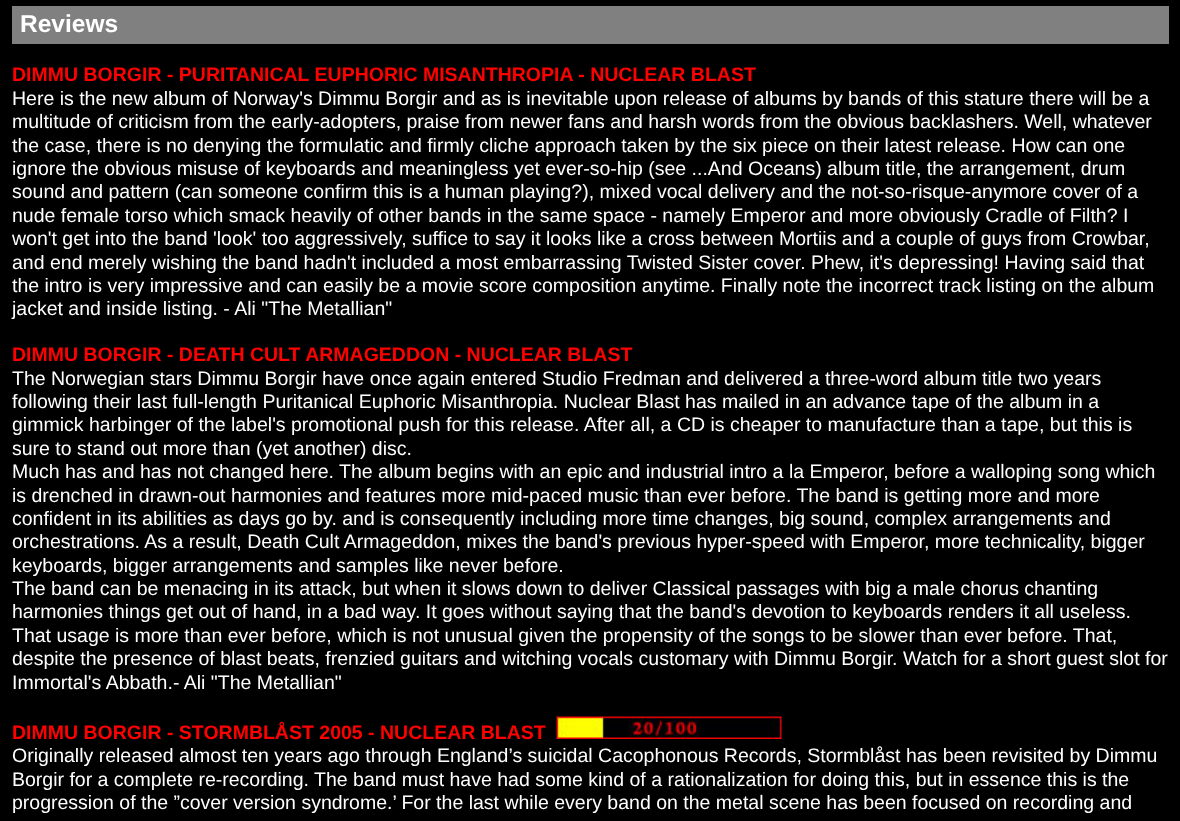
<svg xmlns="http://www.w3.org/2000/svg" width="1180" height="821">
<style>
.a{font:bold 24.5px Liberation Sans;fill:#fff}
.b{font:bold 19.5px Liberation Sans;fill:#f00}
.c{font:19.5px Liberation Sans;fill:#fff}
</style>
<rect width="100%" height="100%" fill="#000"/>
<path fill="#808080" d="M12 6h1157v38H12z"/>
<image href="1.png" x="556" y="716" width="226" height="23"/>
<text class="a" x="20" y="32">Reviews</text>
<text class="b" x="12" y="81">DIMMU BORGIR - PURITANICAL EUPHORIC MISANTHROPIA - NUCLEAR BLAST</text>
<text class="c" x="12" y="105">Here is the new album of Norway's Dimmu Borgir and as is inevitable upon release of albums by bands of this stature there will be a</text>
<text class="c" x="12" y="128">multitude of criticism from the early-adopters, praise from newer fans and harsh words from the obvious backlashers. Well, whatever</text>
<text class="c" x="12" y="152">the case, there is no denying the formulatic and firmly cliche approach taken by the six piece on their latest release. How can one</text>
<text class="c" x="12" y="175">ignore the obvious misuse of keyboards and meaningless yet ever-so-hip (see ...And Oceans) album title, the arrangement, drum</text>
<text class="c" x="12" y="198">sound and pattern (can someone confirm this is a human playing?), mixed vocal delivery and the not-so-risque-anymore cover of a</text>
<text class="c" x="12" y="222">nude female torso which smack heavily of other bands in the same space - namely Emperor and more obviously Cradle of Filth? I</text>
<text class="c" x="12" y="245">won't get into the band 'look' too aggressively, suffice to say it looks like a cross between Mortiis and a couple of guys from Crowbar,</text>
<text class="c" x="12" y="269">and end merely wishing the band hadn't included a most embarrassing Twisted Sister cover. Phew, it's depressing! Having said that</text>
<text class="c" x="12" y="292">the intro is very impressive and can easily be a movie score composition anytime. Finally note the incorrect track listing on the album</text>
<text class="c" x="12" y="315">jacket and inside listing. - Ali "The Metallian"</text>
<text class="b" x="12" y="361">DIMMU BORGIR - DEATH CULT ARMAGEDDON - NUCLEAR BLAST</text>
<text class="c" x="12" y="385">The Norwegian stars Dimmu Borgir have once again entered Studio Fredman and delivered a three-word album title two years</text>
<text class="c" x="12" y="408">following their last full-length Puritanical Euphoric Misanthropia. Nuclear Blast has mailed in an advance tape of the album in a</text>
<text class="c" x="12" y="431">gimmick harbinger of the label's promotional push for this release. After all, a CD is cheaper to manufacture than a tape, but this is</text>
<text class="c" x="12" y="455">sure to stand out more than (yet another) disc.</text>
<text class="c" x="12" y="478">Much has and has not changed here. The album begins with an epic and industrial intro a la Emperor, before a walloping song which</text>
<text class="c" x="12" y="502">is drenched in drawn-out harmonies and features more mid-paced music than ever before. The band is getting more and more</text>
<text class="c" x="12" y="525">confident in its abilities as days go by. and is consequently including more time changes, big sound, complex arrangements and</text>
<text class="c" x="12" y="548">orchestrations. As a result, Death Cult Armageddon, mixes the band's previous hyper-speed with Emperor, more technicality, bigger</text>
<text class="c" x="12" y="572">keyboards, bigger arrangements and samples like never before.</text>
<text class="c" x="12" y="595">The band can be menacing in its attack, but when it slows down to deliver Classical passages with big a male chorus chanting</text>
<text class="c" x="12" y="618">harmonies things get out of hand, in a bad way. It goes without saying that the band's devotion to keyboards renders it all useless.</text>
<text class="c" x="12" y="642">That usage is more than ever before, which is not unusual given the propensity of the songs to be slower than ever before. That,</text>
<text class="c" x="12" y="665">despite the presence of blast beats, frenzied guitars and witching vocals customary with Dimmu Borgir. Watch for a short guest slot for</text>
<text class="c" x="12" y="689">Immortal's Abbath.- Ali "The Metallian"</text>
<text class="b" x="12" y="739">DIMMU BORGIR - STORMBLÅST 2005 - NUCLEAR BLAST</text>
<text class="c" x="12" y="762">Originally released almost ten years ago through England’s suicidal Cacophonous Records, Stormblåst has been revisited by Dimmu</text>
<text class="c" x="12" y="786">Borgir for a complete re-recording. The band must have had some kind of a rationalization for doing this, but in essence this is the</text>
<text class="c" x="12" y="809">progression of the ”cover version syndrome.’ For the last while every band on the metal scene has been focused on recording and</text>
</svg>
